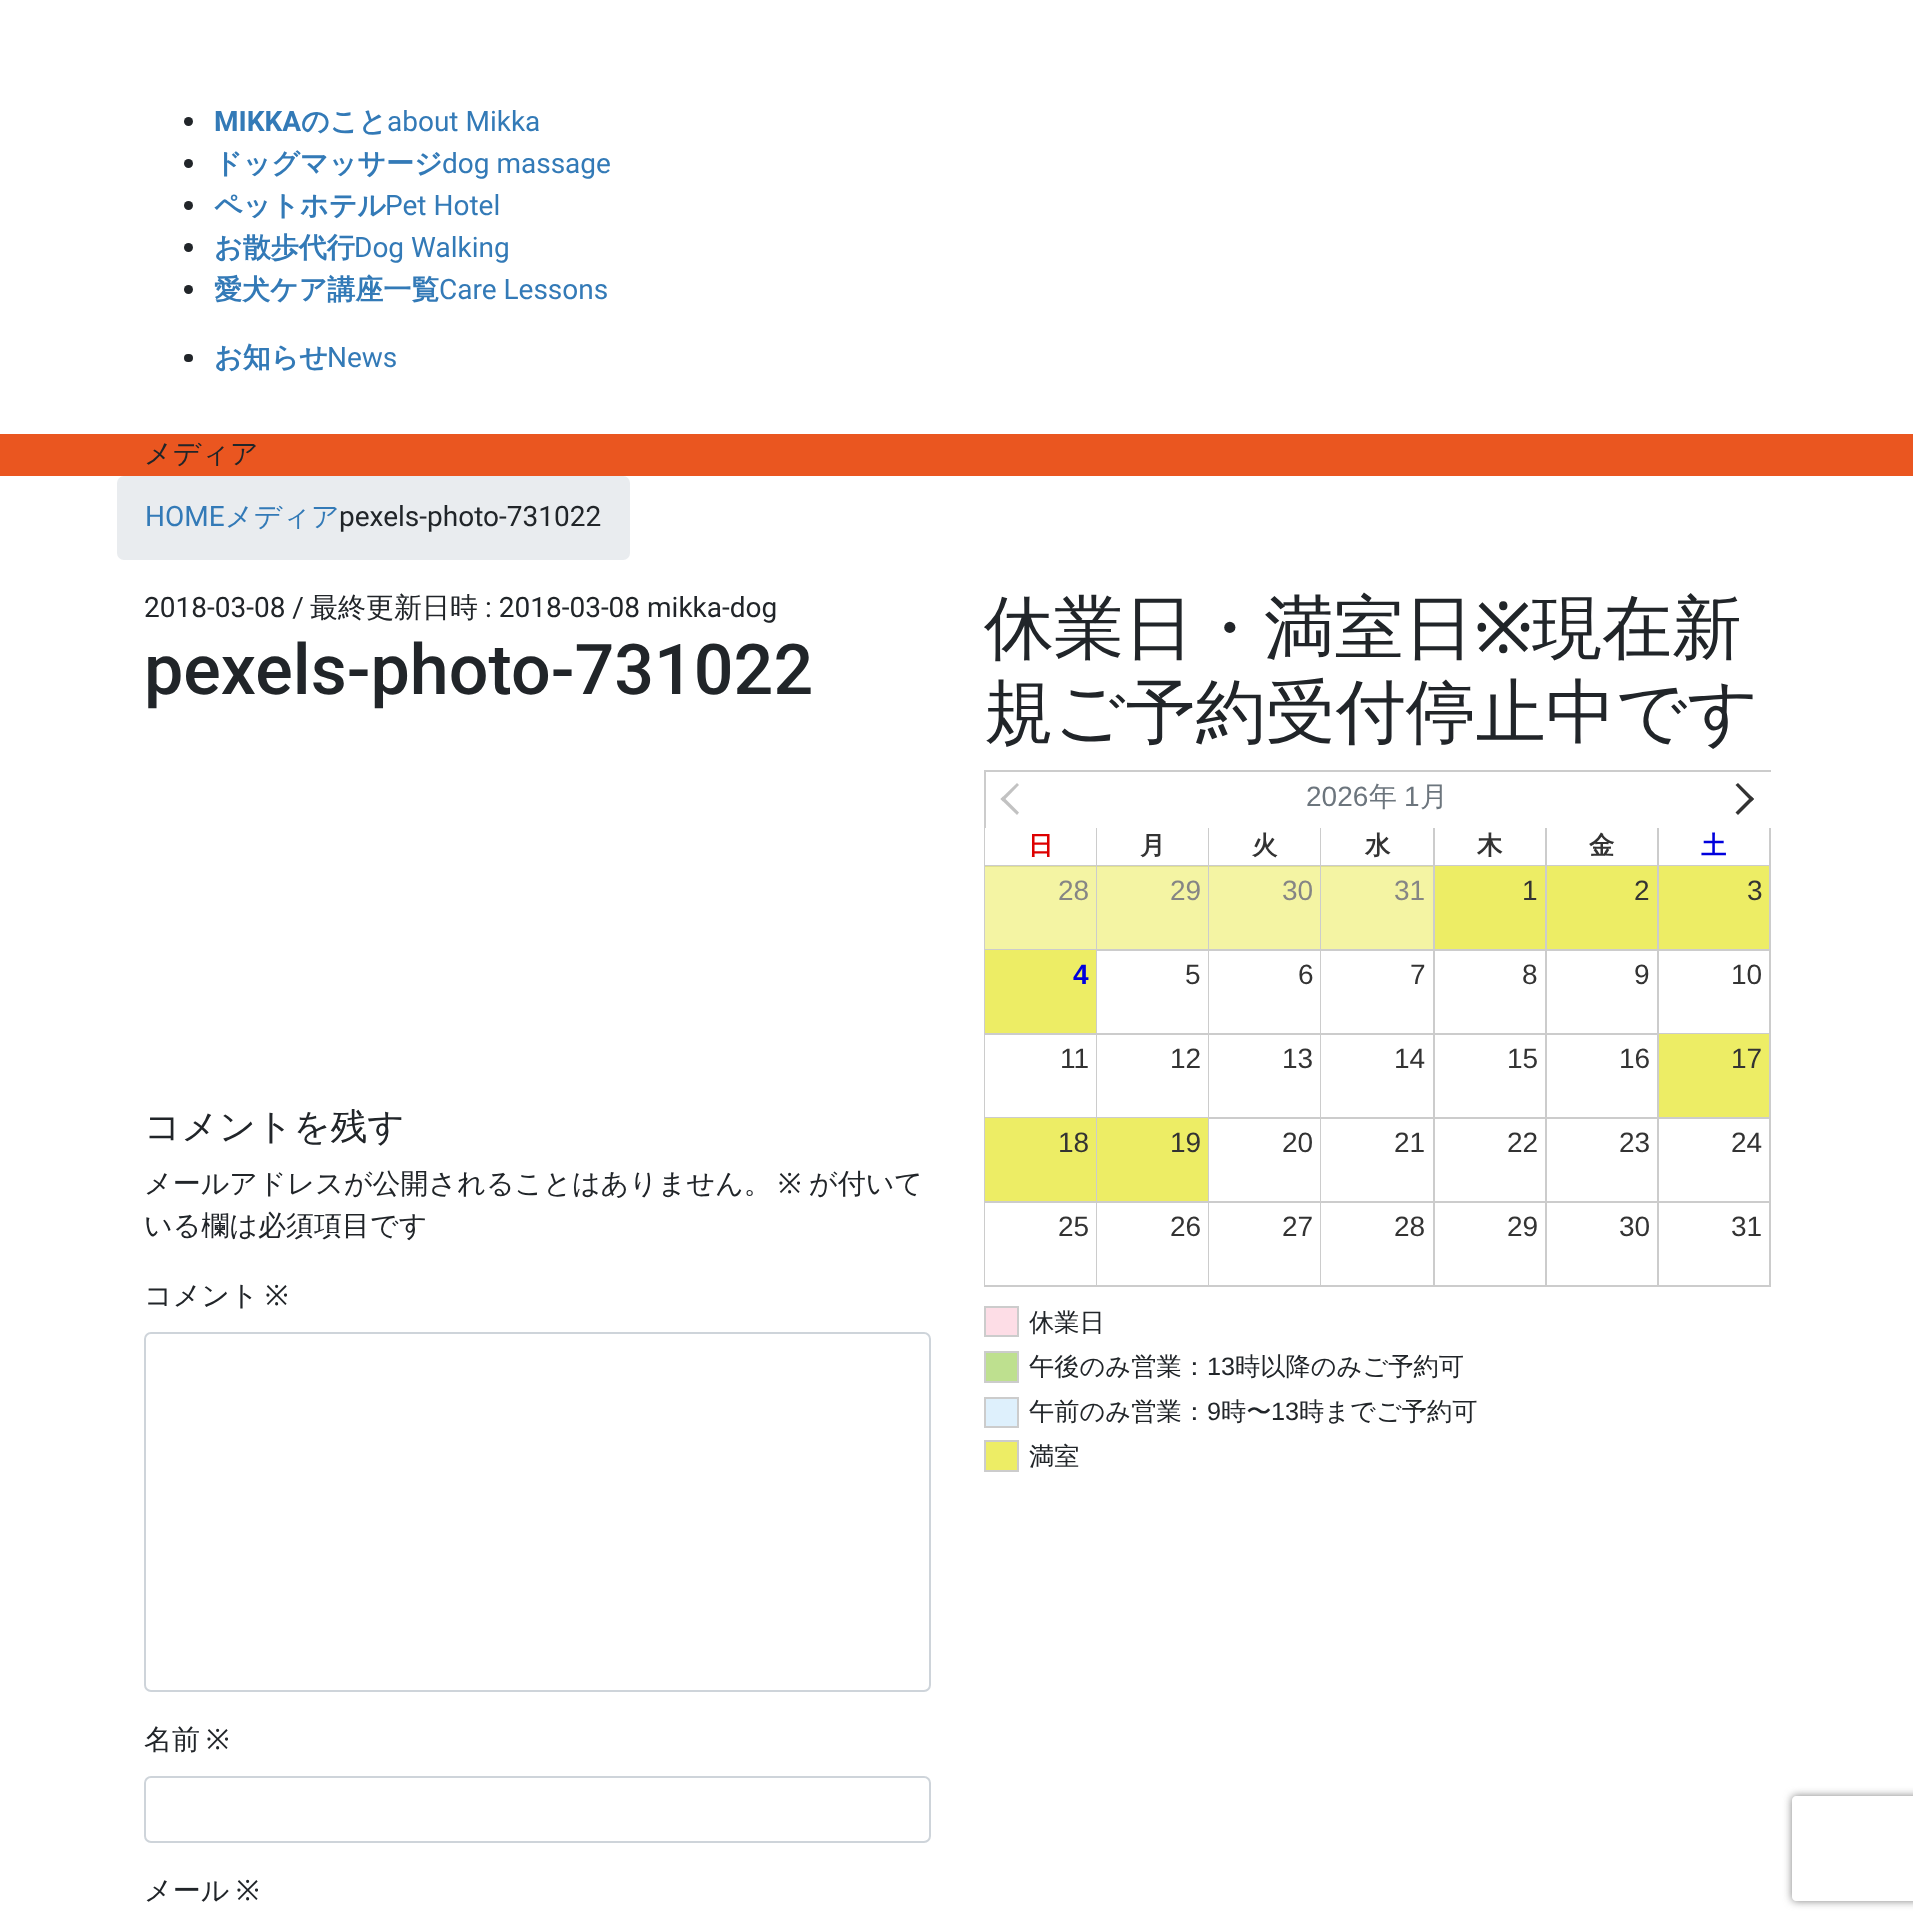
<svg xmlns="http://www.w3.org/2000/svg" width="1913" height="1925">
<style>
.a{font:bold 28px Roboto;fill:#337ab7}
.b{font:bold 28px WenQuanYi Zen Hei;fill:#337ab7}
.c{font:28px Roboto;fill:#337ab7}
.d{font:500 28px WenQuanYi Zen Hei;fill:#212529}
.e{font:500 28px WenQuanYi Zen Hei;fill:#337ab7}
.f{font:28px Roboto;fill:#212529}
.g{font:500 70px Roboto;fill:#212529}
.h{font:500 36.5px WenQuanYi Zen Hei;fill:#212529}
.i{font:28px Noto Sans;fill:#212529}
.j{font:500 70px WenQuanYi Zen Hei;fill:#212529}
.k{font:500 70px Noto Sans;fill:#212529}
.l{font:28px Liberation Sans;fill:#6c757d}
.m{font:500 28px WenQuanYi Zen Hei;fill:#6c757d}
.n{font:bold 25.25px WenQuanYi Zen Hei;fill:#d00}
.o{font:bold 25.25px WenQuanYi Zen Hei;fill:#333}
.p{font:bold 25.25px WenQuanYi Zen Hei;fill:#00d}
.q{font:28px Liberation Sans;fill:#858585}
.r{font:28px Liberation Sans;fill:#333}
.s{font:bold 28px Liberation Sans;fill:#00d}
.t{font:500 25.25px WenQuanYi Zen Hei;fill:#212529}
.u{font:25.25px Liberation Sans;fill:#212529}
</style>
<defs>
<clipPath id="clip1"><path d="M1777 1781h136v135h-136zm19 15h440c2 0 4 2 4 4v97c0 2-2 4-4 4h-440c-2 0-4-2-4-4v-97c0-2 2-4 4-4z" clip-rule="evenodd"/></clipPath>
</defs>
<rect width="100%" height="100%" fill="#fff"/>
<circle fill="#212529" cx="188.5" cy="121.5" r="4.5"/>
<circle fill="#212529" cx="188.5" cy="163.5" r="4.5"/>
<circle fill="#212529" cx="188.5" cy="205.5" r="4.5"/>
<circle fill="#212529" cx="188.5" cy="247.5" r="4.5"/>
<circle fill="#212529" cx="188.5" cy="289.5" r="4.5"/>
<rect fill="#212529" x="184" y="354" width="9" height="8" rx="4"/>
<path fill="#ea5620" d="M0 434h1913v42H0z"/>
<rect fill="#e9ecef" x="117" y="476" width="513" height="84" rx="7"/>
<rect fill="none" stroke="#ced4da" stroke-width="2" x="145" y="1333" width="785" height="358" rx="6"/>
<rect fill="none" stroke="#ced4da" stroke-width="2" x="145" y="1777" width="785" height="65" rx="6"/>
<g clip-path="url(#clip1)">
<rect fill="#808080" filter="blur(4.5px)" x="1792" y="1796" width="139" height="105" rx="4"/>
</g>
<path fill="#ccc" d="M984 770h787v2H984z"/>
<path fill="#ccc" d="M984 1285h787v2H984z"/>
<path fill="#ccc" d="M984 770h2v516H984z"/>
<path fill="#c2c2c2" d="M1003 796.5l16 16l-2 2.5l-16.5-16z"/>
<path fill="#c2c2c2" d="M1017 783l2 2l-16 16.5l-2.5-2.5z"/>
<path fill="#333" d="M1738 783l16 16l-2.5 2.5l-16-16.5z"/>
<path fill="#333" d="M1751.5 796.5l2.5 2.5l-16 16l-2.5-2.5z"/>
<path fill="#fff" d="M985 828h1v37H985z"/>
<path fill="#ccc" d="M1096 828h1v37H1096z"/>
<path fill="#ccc" d="M1208 828h1v37H1208z"/>
<path fill="#ccc" d="M1320 828h1v37H1320z"/>
<path fill="#ccc" d="M1433 828h2v37H1433z"/>
<path fill="#ccc" d="M1545 828h2v37H1545z"/>
<path fill="#ccc" d="M1657 828h2v37H1657z"/>
<path fill="#ccc" d="M1769 828h2v37H1769z"/>
<path fill="#f4f4a3" d="M985 867h111v82H985z"/>
<path fill="#ccc" d="M985 865h786v1H985z"/>
<path fill="#e0e08e" d="M985 866h111v1H985z"/>
<path fill="#ccc" d="M1096 865h1v84H1096z"/>
<path fill="#f4f4a3" d="M1097 867h111v82H1097z"/>
<path fill="#e0e08e" d="M1097 866h111v1H1097z"/>
<path fill="#ccc" d="M1208 865h1v84H1208z"/>
<path fill="#f4f4a3" d="M1209 867h111v82H1209z"/>
<path fill="#e0e08e" d="M1209 866h111v1H1209z"/>
<path fill="#ccc" d="M1320 865h1v84H1320z"/>
<path fill="#f4f4a3" d="M1321 867h112v82H1321z"/>
<path fill="#e0e08e" d="M1321 866h112v1H1321z"/>
<path fill="#ccc" d="M1433 865h2v84H1433z"/>
<path fill="#ccc" d="M1545 865h2v84H1545z"/>
<path fill="#eded65" d="M1435 866h110v83H1435z"/>
<path fill="#ccc" d="M1657 865h2v84H1657z"/>
<path fill="#eded65" d="M1547 866h110v83H1547z"/>
<path fill="#ccc" d="M1769 865h2v84H1769z"/>
<path fill="#eded65" d="M1659 866h110v83H1659z"/>
<path fill="#ccc" d="M985 949h112v1H985z"/>
<path fill="#ccc" d="M1096 949h1v84H1096z"/>
<path fill="#eded65" d="M985 950h111v83H985z"/>
<path fill="#ccc" d="M1097 949h674v2H1097z"/>
<path fill="#ccc" d="M1208 949h1v84H1208z"/>
<path fill="#ccc" d="M1320 949h1v84H1320z"/>
<path fill="#ccc" d="M1433 949h2v84H1433z"/>
<path fill="#ccc" d="M1545 949h2v84H1545z"/>
<path fill="#ccc" d="M1657 949h2v84H1657z"/>
<path fill="#ccc" d="M1769 949h2v84H1769z"/>
<path fill="#fff" d="M985 1035h1v82H985z"/>
<path fill="#ccc" d="M985 1033h674v2H985z"/>
<path fill="#ccc" d="M1096 1033h1v84H1096z"/>
<path fill="#ccc" d="M1208 1033h1v84H1208z"/>
<path fill="#ccc" d="M1320 1033h1v84H1320z"/>
<path fill="#ccc" d="M1433 1033h2v84H1433z"/>
<path fill="#ccc" d="M1545 1033h2v84H1545z"/>
<path fill="#ccc" d="M1657 1033h2v84H1657z"/>
<path fill="#ccc" d="M1659 1033h112v1H1659z"/>
<path fill="#ccc" d="M1769 1033h2v84H1769z"/>
<path fill="#eded65" d="M1659 1034h110v83H1659z"/>
<path fill="#ccc" d="M985 1117h224v1H985z"/>
<path fill="#ccc" d="M1096 1117h1v84H1096z"/>
<path fill="#eded65" d="M985 1118h111v83H985z"/>
<path fill="#ccc" d="M1208 1117h1v84H1208z"/>
<path fill="#eded65" d="M1097 1118h111v83H1097z"/>
<path fill="#ccc" d="M1209 1117h562v2H1209z"/>
<path fill="#ccc" d="M1320 1117h1v84H1320z"/>
<path fill="#ccc" d="M1433 1117h2v84H1433z"/>
<path fill="#ccc" d="M1545 1117h2v84H1545z"/>
<path fill="#ccc" d="M1657 1117h2v84H1657z"/>
<path fill="#ccc" d="M1769 1117h2v84H1769z"/>
<path fill="#fff" d="M985 1203h1v82H985z"/>
<path fill="#ccc" d="M985 1201h786v2H985z"/>
<path fill="#ccc" d="M1096 1201h1v84H1096z"/>
<path fill="#ccc" d="M1208 1201h1v84H1208z"/>
<path fill="#ccc" d="M1320 1201h1v84H1320z"/>
<path fill="#ccc" d="M1433 1201h2v84H1433z"/>
<path fill="#ccc" d="M1545 1201h2v84H1545z"/>
<path fill="#ccc" d="M1657 1201h2v84H1657z"/>
<path fill="#ccc" d="M1769 1201h2v84H1769z"/>
<path fill="#fddde6" stroke="#ccc" stroke-width="2" d="M985 1307h33v29H985z"/>
<path fill="#bee08f" stroke="#ccc" stroke-width="2" d="M985 1352h33v30H985z"/>
<path fill="#def0fc" stroke="#ccc" stroke-width="2" d="M985 1398h33v29H985z"/>
<path fill="#eded65" stroke="#ccc" stroke-width="2" d="M985 1441h33v30H985z"/>
<text class="a" x="214" y="131">MIKKA</text>
<text class="b" x="301" y="131">のこと</text>
<text class="c" x="387" y="131">about Mikka</text>
<text class="b" x="214" y="173">ドッグマッサージ</text>
<text class="c" x="442" y="173">dog massage</text>
<text class="b" x="214" y="215">ペットホテル</text>
<text class="c" x="385" y="215">Pet Hotel</text>
<text class="b" x="214" y="257">お散歩代行</text>
<text class="c" x="354" y="257">Dog Walking</text>
<text class="b" x="214" y="299">愛犬ケア講座一覧</text>
<text class="c" x="439" y="299">Care Lessons</text>
<text class="b" x="214" y="367">お知らせ</text>
<text class="c" x="327" y="367">News</text>
<text class="d" x="144" y="463">メディア</text>
<text class="c" x="145" y="526">HOME</text>
<text class="e" x="225" y="526">メディア</text>
<text class="f" x="339" y="526">pexels-photo-731022</text>
<text class="f" x="144" y="617">2018-03-08 /</text>
<text class="d" x="310" y="617">最終更新日時</text>
<text class="f" x="485" y="617">: 2018-03-08 mikka-dog</text>
<text class="g" x="144" y="694">pexels-photo-731022</text>
<text class="h" x="144" y="1139">コメントを残す</text>
<text class="d" x="144" y="1193">メールアドレスが公開されることはありません。</text>
<text class="i" x="778" y="1193">※</text>
<text class="d" x="809" y="1193">が付いて</text>
<text class="d" x="144" y="1235">いる欄は必須項目です</text>
<text class="d" x="144" y="1305">コメント</text>
<text class="i" x="265" y="1305">※</text>
<text class="d" x="144" y="1749">名前</text>
<text class="i" x="206" y="1749">※</text>
<text class="d" x="144" y="1900">メール</text>
<text class="i" x="236" y="1900">※</text>
<text class="j" x="984" y="652">休業日・満室日</text>
<text class="k" x="1474" y="652">※</text>
<text class="j" x="1532" y="652">現在新</text>
<text class="j" x="984" y="736">規ご予約受付停止中です</text>
<text class="l" x="1306" y="806">2026</text>
<text class="m" x="1369" y="806">年</text>
<text class="l" x="1404" y="806">1</text>
<text class="m" x="1420" y="806">月</text>
<text class="n" x="1028" y="854">日</text>
<text class="o" x="1140" y="854">月</text>
<text class="o" x="1252" y="854">火</text>
<text class="o" x="1365" y="854">水</text>
<text class="o" x="1477" y="854">木</text>
<text class="o" x="1589" y="854">金</text>
<text class="p" x="1701" y="854">土</text>
<text class="q" x="1058" y="900">28</text>
<text class="q" x="1170" y="900">29</text>
<text class="q" x="1282" y="900">30</text>
<text class="q" x="1394" y="900">31</text>
<text class="r" x="1522" y="900">1</text>
<text class="r" x="1634" y="900">2</text>
<text class="r" x="1747" y="900">3</text>
<text class="s" x="1073" y="984">4</text>
<text class="r" x="1185" y="984">5</text>
<text class="r" x="1298" y="984">6</text>
<text class="r" x="1410" y="984">7</text>
<text class="r" x="1522" y="984">8</text>
<text class="r" x="1634" y="984">9</text>
<text class="r" x="1731" y="984">10</text>
<text class="r" x="1060" y="1068">11</text>
<text class="r" x="1170" y="1068">12</text>
<text class="r" x="1282" y="1068">13</text>
<text class="r" x="1394" y="1068">14</text>
<text class="r" x="1507" y="1068">15</text>
<text class="r" x="1619" y="1068">16</text>
<text class="r" x="1731" y="1068">17</text>
<text class="r" x="1058" y="1152">18</text>
<text class="r" x="1170" y="1152">19</text>
<text class="r" x="1282" y="1152">20</text>
<text class="r" x="1394" y="1152">21</text>
<text class="r" x="1507" y="1152">22</text>
<text class="r" x="1619" y="1152">23</text>
<text class="r" x="1731" y="1152">24</text>
<text class="r" x="1058" y="1236">25</text>
<text class="r" x="1170" y="1236">26</text>
<text class="r" x="1282" y="1236">27</text>
<text class="r" x="1394" y="1236">28</text>
<text class="r" x="1507" y="1236">29</text>
<text class="r" x="1619" y="1236">30</text>
<text class="r" x="1731" y="1236">31</text>
<text class="t" x="1029" y="1331">休業日</text>
<text class="t" x="1029" y="1375">午後のみ営業：</text>
<text class="u" x="1207" y="1375">13</text>
<text class="t" x="1235" y="1375">時以降のみご予約可</text>
<text class="t" x="1029" y="1420">午前のみ営業：</text>
<text class="u" x="1207" y="1420">9</text>
<text class="t" x="1221" y="1420">時〜</text>
<text class="u" x="1271" y="1420">13</text>
<text class="t" x="1299" y="1420">時までご予約可</text>
<text class="t" x="1029" y="1465">満室</text>
</svg>
